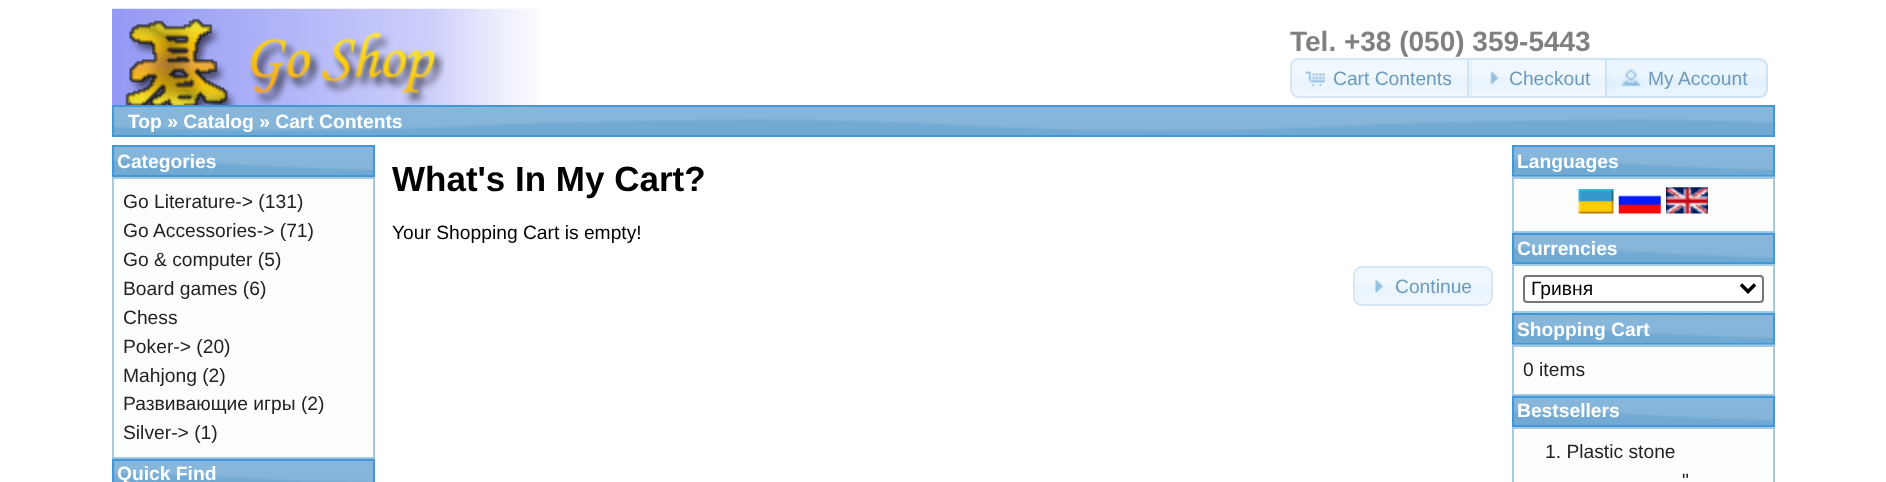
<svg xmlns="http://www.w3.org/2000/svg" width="1886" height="482">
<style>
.a{font:bold 28px Liberation Sans;fill:#808080}
.b{font:19.25px Liberation Sans;fill:#6d9abb}
.c{font:bold 19.25px Liberation Sans;fill:#fff}
.d{font:19.25px Liberation Sans;fill:#222}
.e{font:bold 35px Liberation Sans;fill:#000}
.f{font:19.25px Liberation Sans;fill:#000}
</style>
<rect width="100%" height="100%" fill="#fff"/>
<image href="1.png" x="112" y="8" width="428" height="97"/>
<image href="2.png" x="1290" y="58" width="180" height="40"/>
<path fill="none" stroke="#d6e6f2" stroke-width="2" d="M1299 59h172v38h-172c-4.5 0-8-3.5-8-8v-22c0-4.5 3.5-8 8-8z"/>
<image href="3.png" x="1305" y="71" width="21" height="16"/>
<image href="4.png" x="1466" y="57" width="146" height="41"/>
<path fill="none" stroke="#c5dbecb3" stroke-width="2" d="M1468 59h143v38H1468z"/>
<image href="5.png" x="1490" y="71" width="9" height="14"/>
<path fill="#dfeffcb3" d="M1605 58h154c5 0 9 4 9 9v22c0 5-4 9-9 9h-154z"/>
<image href="6.png" x="1605" y="58" width="162" height="40"/>
<path fill="none" stroke="#c5dbecb3" stroke-width="2" d="M1606 59h153c4.5 0 8 3.5 8 8v22c0 4.5-3.5 8-8 8h-153z"/>
<image href="7.png" x="1621" y="69" width="20" height="18"/>
<image href="8.png" x="114" y="107" width="1659" height="28"/>
<path fill="none" stroke="#4297d7" stroke-width="2" d="M113 106h1661v30H113z"/>
<image href="9.png" x="114" y="147" width="259" height="28"/>
<path fill="none" stroke="#4297d7" stroke-width="2" d="M113 146h261v30H113z"/>
<path fill="#fcfdfd" stroke="#a6c9e2" stroke-width="2" d="M113 178h261v280H113z"/>
<image href="10.png" x="112" y="458" width="263" height="24"/>
<path fill="none" stroke="#4297d7" stroke-width="2" d="M113 460h261v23H113z"/>
<image href="11.png" x="1353" y="268" width="140" height="38"/>
<rect fill="none" stroke="#d6e6f2" stroke-width="2" x="1354" y="267" width="138" height="38" rx="8"/>
<image href="12.png" x="1375" y="279" width="8" height="14"/>
<image href="9.png" x="1514" y="147" width="259" height="28"/>
<path fill="none" stroke="#4297d7" stroke-width="2" d="M1513 146h261v30H1513z"/>
<path fill="#fcfdfd" stroke="#a6c9e2" stroke-width="2" d="M1513 178h261v54H1513z"/>
<image href="13.png" x="1512" y="176" width="263" height="1"/>
<image href="14.png" x="1578" y="189" width="36" height="25"/>
<image href="15.png" x="1618" y="195" width="43" height="19"/>
<image href="16.png" x="1666" y="187" width="42" height="27"/>
<image href="17.png" x="1512" y="232" width="263" height="30"/>
<path fill="none" stroke="#4297d7" stroke-width="2" d="M1513 234h261v29H1513z"/>
<path fill="#fcfdfd" stroke="#a6c9e2" stroke-width="2" d="M1513 265h261v47H1513z"/>
<rect fill="#fff" stroke="#767676" stroke-width="2" x="1524" y="276" width="239" height="26" rx="3"/>
<path fill="none" stroke="#000" stroke-width="3.5" d="M1741 284.5l7 7l7-7"/>
<image href="9.png" x="1514" y="315" width="259" height="28"/>
<path fill="none" stroke="#4297d7" stroke-width="2" d="M1513 314h261v30H1513z"/>
<path fill="#fcfdfd" stroke="#a6c9e2" stroke-width="2" d="M1513 346h261v49H1513z"/>
<image href="13.png" x="1512" y="344" width="263" height="1"/>
<image href="18.png" x="1512" y="395" width="263" height="30"/>
<path fill="none" stroke="#4297d7" stroke-width="2" d="M1513 397h261v29H1513z"/>
<path fill="#fcfdfd" stroke="#a6c9e2" stroke-width="2" d="M1513 428h261v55H1513z"/>
<text class="a" x="1290" y="51">Tel. +38 (050) 359-5443</text>
<text class="b" x="1333" y="85">Cart Contents</text>
<text class="b" x="1509" y="85">Checkout</text>
<text class="b" x="1648" y="85">My Account</text>
<text class="c" x="128" y="128">Top » Catalog » Cart Contents</text>
<text class="c" x="117" y="168">Categories</text>
<text class="d" x="123" y="208">Go Literature-&gt; (131)</text>
<text class="d" x="123" y="237">Go Accessories-&gt; (71)</text>
<text class="d" x="123" y="266">Go &amp; computer (5)</text>
<text class="d" x="123" y="295">Board games (6)</text>
<text class="d" x="123" y="324">Chess</text>
<text class="d" x="123" y="353">Poker-&gt; (20)</text>
<text class="d" x="123" y="382">Mahjong (2)</text>
<text class="d" x="123" y="410">Развивающие игры (2)</text>
<text class="d" x="123" y="439">Silver-&gt; (1)</text>
<text class="c" x="117" y="480">Quick Find</text>
<text class="e" x="392" y="191">What's In My Cart?</text>
<text class="f" x="392" y="239">Your Shopping Cart is empty!</text>
<text class="b" x="1395" y="293">Continue</text>
<text class="c" x="1517" y="168">Languages</text>
<text class="c" x="1517" y="255">Currencies</text>
<text class="f" x="1531" y="295">Гривня</text>
<text class="c" x="1517" y="336">Shopping Cart</text>
<text class="d" x="1523" y="376">0 items</text>
<text class="c" x="1517" y="417">Bestsellers</text>
<text class="d" x="1545" y="458">1. Plastic stone</text>
<text class="d" x="1682" y="487">"</text>
</svg>
